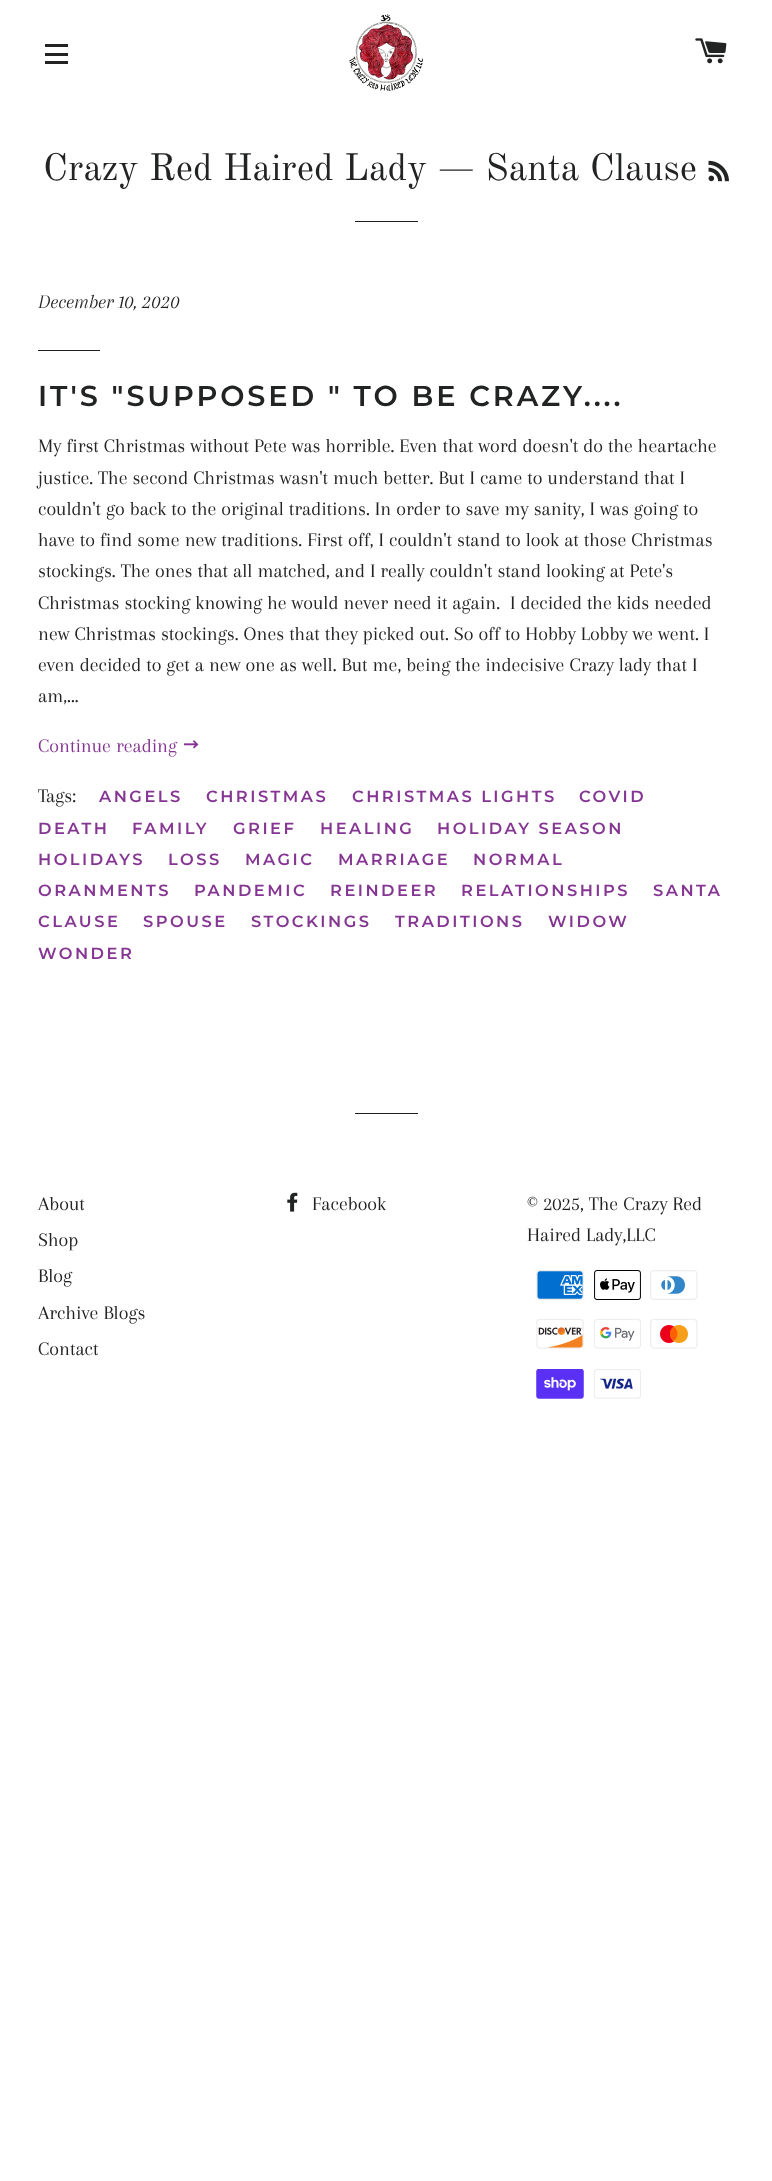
<svg xmlns="http://www.w3.org/2000/svg" width="772" height="2181">
<style>
.a{font:37.5px Old Standard TT;fill:#222323}
.b{font:italic 20px Arapey;fill:#222323}
.c{font:600 28.75px Montserrat;letter-spacing:2.9px;fill:#222323}
.d{font:20px Arapey;fill:#222323}
.e{font:20px Arapey;fill:#853692}
.f{font:600 16.25px Montserrat;letter-spacing:2.5px;fill:#853692}
</style>
<rect width="100%" height="100%" fill="#fff"/>
<path fill="#222323" d="M45 44h23v3H45z"/>
<path fill="#222323" d="M45 53h23v3H45z"/>
<path fill="#222323" d="M45 61h23v3H45z"/>
<image href="1.png" x="349" y="14" width="75" height="77"/>
<image href="2.png" x="695" y="38" width="32" height="26"/>
<image href="3.png" x="708" y="160" width="21" height="22"/>
<path fill="#1c1d1d" d="M355 221h63v1H355z"/>
<path fill="#1c1d1d" d="M38 350h62v1H38z"/>
<image href="4.png" x="184" y="740" width="15" height="9"/>
<path fill="#1c1d1d" d="M355 1113h63v1H355z"/>
<image href="5.png" x="287" y="1192" width="11" height="20"/>
<image href="6.png" x="536" y="1270" width="48" height="30"/>
<image href="7.png" x="594" y="1270" width="47" height="30"/>
<image href="8.png" x="650" y="1270" width="48" height="30"/>
<image href="9.png" x="536" y="1319" width="48" height="30"/>
<image href="10.png" x="594" y="1319" width="47" height="30"/>
<image href="11.png" x="650" y="1319" width="48" height="30"/>
<image href="12.png" x="536" y="1369" width="48" height="30"/>
<image href="13.png" x="594" y="1369" width="47" height="30"/>
<text class="a" x="43" y="180">Crazy Red Haired Lady — Santa Clause</text>
<text class="b" x="38" y="308">December 10, 2020</text>
<text class="c" x="38" y="406">IT'S "SUPPOSED " TO BE CRAZY....</text>
<text class="d" x="38" y="452">My first Christmas without Pete was horrible. Even that word doesn't do the heartache</text>
<text class="d" x="38" y="484">justice. The second Christmas wasn't much better. But I came to understand that I</text>
<text class="d" x="38" y="515">couldn't go back to the original traditions. In order to save my sanity, I was going to</text>
<text class="d" x="38" y="546">have to find some new traditions. First off, I couldn't stand to look at those Christmas</text>
<text class="d" x="38" y="577">stockings. The ones that all matched, and I really couldn't stand looking at Pete's</text>
<text class="d" xml:space="preserve" x="38" y="609">Christmas stocking knowing he would never need it again.  I decided the kids needed</text>
<text class="d" x="38" y="640">new Christmas stockings. Ones that they picked out. So off to Hobby Lobby we went. I</text>
<text class="d" x="38" y="671">even decided to get a new one as well. But me, being the indecisive Crazy lady that I</text>
<text class="d" x="38" y="702">am,...</text>
<text class="e" x="38" y="752">Continue reading</text>
<text class="d" x="38" y="802">Tags:</text>
<text class="f" x="99" y="802">ANGELS</text>
<text class="f" x="206" y="802">CHRISTMAS</text>
<text class="f" x="352" y="802">CHRISTMAS LIGHTS</text>
<text class="f" x="579" y="802">COVID</text>
<text class="f" x="38" y="834">DEATH</text>
<text class="f" x="132" y="834">FAMILY</text>
<text class="f" x="233" y="834">GRIEF</text>
<text class="f" x="320" y="834">HEALING</text>
<text class="f" x="437" y="834">HOLIDAY SEASON</text>
<text class="f" x="38" y="865">HOLIDAYS</text>
<text class="f" x="168" y="865">LOSS</text>
<text class="f" x="245" y="865">MAGIC</text>
<text class="f" x="338" y="865">MARRIAGE</text>
<text class="f" x="473" y="865">NORMAL</text>
<text class="f" x="38" y="896">ORANMENTS</text>
<text class="f" x="194" y="896">PANDEMIC</text>
<text class="f" x="330" y="896">REINDEER</text>
<text class="f" x="461" y="896">RELATIONSHIPS</text>
<text class="f" x="653" y="896">SANTA</text>
<text class="f" x="38" y="927">CLAUSE</text>
<text class="f" x="143" y="927">SPOUSE</text>
<text class="f" x="251" y="927">STOCKINGS</text>
<text class="f" x="395" y="927">TRADITIONS</text>
<text class="f" x="548" y="927">WIDOW</text>
<text class="f" x="38" y="959">WONDER</text>
<text class="d" x="38" y="1210">About</text>
<text class="d" x="38" y="1246">Shop</text>
<text class="d" x="38" y="1282">Blog</text>
<text class="d" x="38" y="1319">Archive Blogs</text>
<text class="d" x="38" y="1355">Contact</text>
<text class="d" x="312" y="1210">Facebook</text>
<text class="d" x="527" y="1210">© 2025, The Crazy Red</text>
<text class="d" x="527" y="1241">Haired Lady,LLC</text>
</svg>
